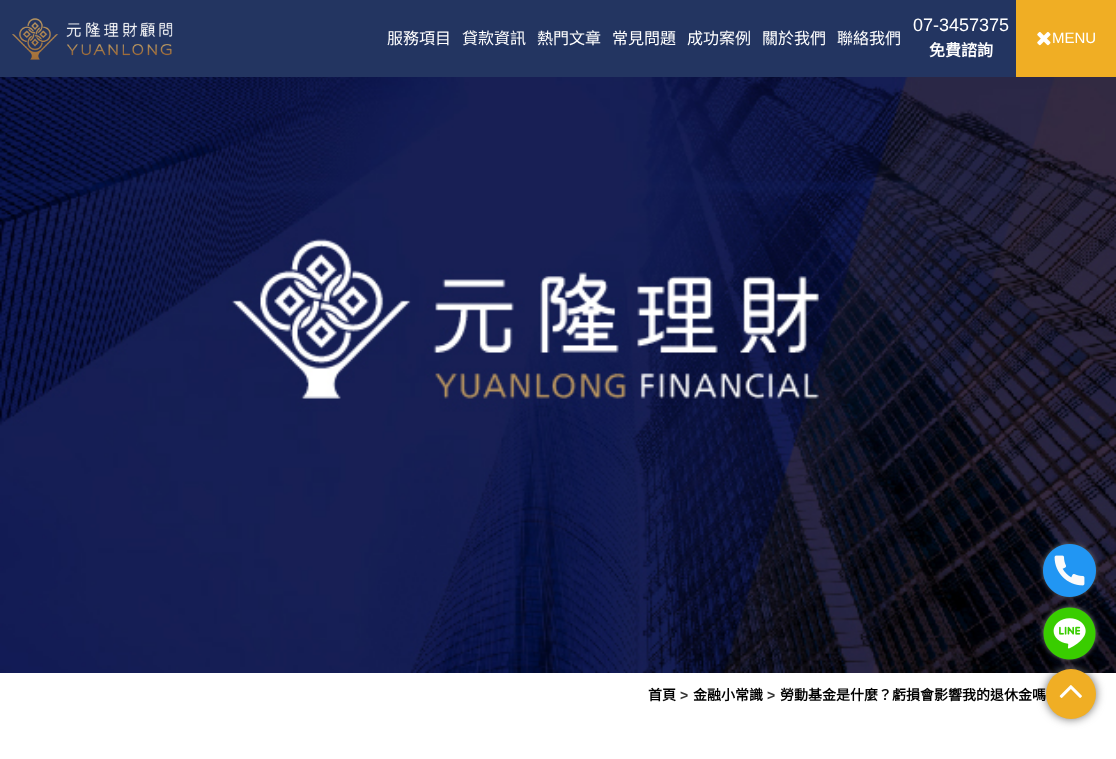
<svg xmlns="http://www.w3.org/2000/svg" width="1116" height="759">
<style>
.a{font:16px Noto Sans CJK TC;fill:#fff}
.b{font:18px Liberation Sans;fill:#fff}
.c{font:bold 16px Noto Sans CJK TC;fill:#fff}
.d{font:15px Liberation Sans;fill:#fff}
.e{font:bold 14px Noto Sans CJK TC;fill:#000}
.f{font:bold 14px Liberation Sans;fill:#373737}
</style>
<rect width="100%" height="100%" fill="#fff"/>
<path fill="#233561" d="M0 0h1016v77H0z"/>
<image href="1.png" x="12" y="18" width="161" height="42"/>
<path fill="#f0ae24" d="M1016 0h100v77H1016z"/>
<image href="2.png" x="1037" y="32" width="14" height="14"/>
<image href="3.png" x="0" y="77" width="1116" height="596"/>
<rect fill="#6c6c6c" filter="blur(2.5px)" x="1043" y="544" width="53" height="52" rx="26"/>
<image href="4.png" x="1043" y="544" width="53" height="53"/>
<rect fill="#6c6c6c" filter="blur(2.5px)" x="1043" y="607" width="53" height="52" rx="26"/>
<image href="5.png" x="1043" y="607" width="53" height="53"/>
<rect fill="#6c6c6c" filter="blur(5px)" x="1046" y="669" width="50" height="50" rx="25"/>
<circle fill="#f0ae24" cx="1071" cy="694" r="25"/>
<image href="6.png" x="1059" y="685" width="23" height="13"/>
<text class="a" x="387" y="44">服務項目</text>
<text class="a" x="462" y="44">貸款資訊</text>
<text class="a" x="537" y="44">熱門文章</text>
<text class="a" x="612" y="44">常見問題</text>
<text class="a" x="687" y="44">成功案例</text>
<text class="a" x="762" y="44">關於我們</text>
<text class="a" x="837" y="44">聯絡我們</text>
<text class="b" x="913" y="31">07-3457375</text>
<text class="c" x="929" y="56">免費諮詢</text>
<text class="d" x="1052" y="43">MENU</text>
<text class="e" x="648" y="700">首頁</text>
<text class="f" x="680" y="700">&gt;</text>
<text class="e" x="693" y="700">金融小常識</text>
<text class="f" x="767" y="700">&gt;</text>
<text class="e" x="780" y="700">勞動基金是什麼？虧損會影響我的退休金嗎</text>
</svg>
